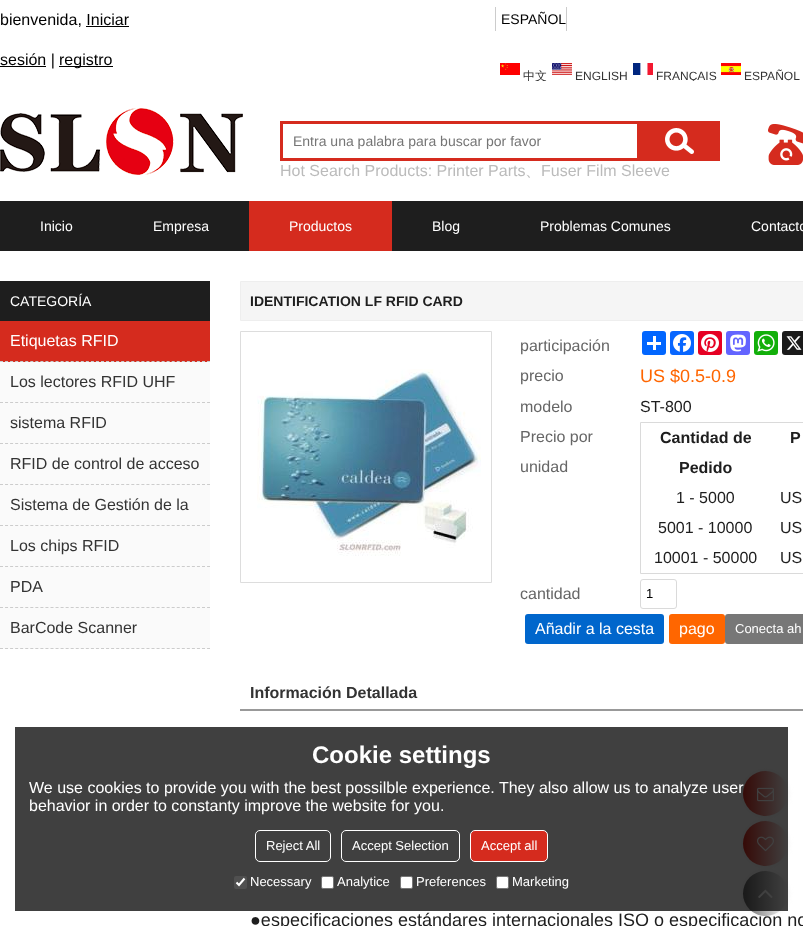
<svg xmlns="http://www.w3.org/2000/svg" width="803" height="926">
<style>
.a{font:16px Liberation Sans;fill:#000}
.b{font:14px Liberation Sans;fill:#000}
.c{font:500 12px WenQuanYi Zen Hei;fill:#333}
.d{font:12px Liberation Sans;fill:#333}
.e{font:14px Liberation Sans;fill:#757575}
.f{font:16px Liberation Sans;fill:#bbb}
.g{font:500 16px WenQuanYi Zen Hei;fill:#bbb}
.h{font:14px Liberation Sans;fill:#fff}
.i{font:16px Liberation Sans;fill:#fff}
.j{font:16px Liberation Sans;fill:#333}
.k{font:bold 14px Liberation Sans;fill:#1e1e1e}
.l{font:16px Liberation Sans;fill:#666}
.m{font:18px Liberation Sans;fill:#f60}
.n{font:16px Liberation Sans;fill:#1e1e1e}
.o{font:bold 16px Liberation Sans;fill:#1e1e1e}
.p{font:13px Liberation Sans;fill:#000}
.q{font:13px Liberation Sans;fill:#fff}
.r{font:bold 16px Liberation Sans;fill:#333}
.s{font:18px Liberation Sans;fill:#1e1e1e}
.t{font:bold 24px Liberation Sans;fill:#fff}
</style>
<defs>
<linearGradient id="g1" gradientUnits="userSpaceOnUse" x1="743" y1="794" x2="788" y2="794"><stop offset="0" stop-color="#d52b1e"/><stop offset="1" stop-color="#fff"/></linearGradient>
<linearGradient id="g2" gradientUnits="userSpaceOnUse" x1="743" y1="844" x2="788" y2="844"><stop offset="0" stop-color="#d52b1e"/><stop offset="1" stop-color="#fff"/></linearGradient>
<clipPath id="clip1"><path d="M495 53h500v28H495z"/></clipPath>
<linearGradient id="g3" gradientUnits="userSpaceOnUse" x1="743" y1="894" x2="788" y2="894"><stop offset="0" stop-color="#666"/><stop offset="1" stop-color="#fff"/></linearGradient>
</defs>
<rect width="100%" height="100%" fill="#fff"/>
<path fill="#000" d="M86 26h43v1H86z"/>
<path fill="#000" d="M0 66h46v1H0z"/>
<path fill="#000" d="M59 66h54v1H59z"/>
<path fill="#ccc" d="M566 7h1v24H566z"/>
<path fill="#ccc" d="M495 7h1v24H495z"/>
<image href="1.png" x="500" y="63" width="20" height="12"/>
<image href="2.png" x="552" y="63" width="20" height="12"/>
<image href="3.png" x="633" y="63" width="20" height="12"/>
<image href="4.png" x="721" y="63" width="20" height="12"/>
<image href="5.png" x="0" y="108" width="243" height="67"/>
<path fill="#d52b1e" d="M280 121h440v40H280z"/>
<path fill="#fff" d="M283 124h354v34H283z"/>
<image href="6.png" x="665" y="128" width="29" height="26"/>
<image href="7.png" x="768" y="124" width="35" height="41"/>
<path fill="#1e1e1e" d="M0 201h803v50H0z"/>
<path fill="#d52b1e" d="M249 201h143v50H249z"/>
<path fill="#1e1e1e" d="M0 281h210v40H0z"/>
<path fill="#fafafa" d="M0 362h210v287H0z"/>
<path fill="#d52b1e" d="M0 321h210v41H0z"/>
<path fill="none" stroke="#ccc" stroke-dasharray="3 2.05" d="M0 361.5h210"/>
<path fill="none" stroke="#ccc" stroke-dasharray="3 2.05" d="M0 402.5h210"/>
<path fill="none" stroke="#ccc" stroke-dasharray="3 2.05" d="M0 443.5h210"/>
<path fill="none" stroke="#ccc" stroke-dasharray="3 2.05" d="M0 484.5h210"/>
<path fill="none" stroke="#ccc" stroke-dasharray="3 2.05" d="M0 525.5h210"/>
<path fill="none" stroke="#ccc" stroke-dasharray="3 2.05" d="M0 566.5h210"/>
<path fill="none" stroke="#ccc" stroke-dasharray="3 2.05" d="M0 607.5h210"/>
<path fill="none" stroke="#ccc" stroke-dasharray="3 2.05" d="M0 648.5h210"/>
<path fill="#f5f5f5" stroke="#eee" d="M240.5 281.5h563v39H240.5z"/>
<path fill="none" stroke="#ddd" d="M240.5 331.5h251v251H240.5z"/>
<image href="8.png" x="257" y="369" width="224" height="187"/>
<rect fill="#0166ff" x="642" y="331" width="24" height="24" rx="3"/>
<path fill="#fff" d="M653 336h3v14H653z"/>
<path fill="#fff" d="M647 342h14v3H647z"/>
<rect fill="#0866ff" x="670" y="331" width="24" height="24" rx="3"/>
<image href="9.png" x="673" y="334" width="18" height="18"/>
<rect fill="#e60023" x="698" y="331" width="24" height="24" rx="3"/>
<image href="10.png" x="701" y="334" width="18" height="18"/>
<rect fill="#6364ff" x="726" y="331" width="24" height="24" rx="3"/>
<image href="11.png" x="730" y="334" width="16" height="18"/>
<rect fill="#12af0a" x="754" y="331" width="24" height="24" rx="3"/>
<image href="12.png" x="757" y="334" width="18" height="18"/>
<rect fill="#1a1a1a" x="782" y="331" width="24" height="24" rx="3"/>
<image href="13.png" x="786" y="336" width="16" height="14"/>
<path fill="none" stroke="#dadada" d="M640.5 422.5h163v151H640.5z"/>
<rect fill="none" stroke="#dadada" x="640.5" y="579.5" width="36" height="29" rx="2.5"/>
<rect fill="#06c" x="525" y="614" width="139" height="30" rx="3"/>
<rect fill="#f60" x="669" y="614" width="56" height="30" rx="3"/>
<rect fill="#777" x="725" y="614" width="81" height="30" rx="3"/>
<path fill="#999" d="M240 709h563v2H240z"/>
<rect fill="#eee" filter="blur(2.5px)" x="743" y="771" width="45" height="45" rx="22.5"/>
<circle fill="url(#g1)" cx="765.5" cy="793.5" r="22.5"/>
<image href="14.png" x="757" y="787" width="17" height="15"/>
<rect fill="#eee" filter="blur(2.5px)" x="743" y="821" width="45" height="45" rx="22.5"/>
<circle fill="url(#g2)" cx="765.5" cy="843.5" r="22.5"/>
<image href="15.png" x="757" y="836" width="17" height="16"/>
<rect fill="#eee" filter="blur(2.5px)" x="743" y="871" width="45" height="45" rx="22.5"/>
<text class="a" x="0" y="25">bienvenida, Iniciar</text>
<text class="a" x="0" y="65">sesión |</text>
<text class="a" x="59" y="65">registro</text>
<text class="b" x="501" y="24">ESPAÑOL</text>
<g clip-path="url(#clip1)">
<text class="c" x="523" y="80">中文</text>
</g>
<text class="d" x="575" y="80">ENGLISH</text>
<g clip-path="url(#clip1)">
<text class="d" x="656" y="80">FRANÇAIS</text>
</g>
<text class="d" x="744" y="80">ESPAÑOL</text>
<text class="e" x="293" y="146">Entra una palabra para buscar por favor</text>
<text class="f" x="280" y="176">Hot Search Products: Printer Parts</text>
<text class="g" x="525" y="176">、</text>
<text class="f" x="541" y="176">Fuser Film Sleeve</text>
<text class="h" x="40" y="231">Inicio</text>
<text class="h" x="153" y="231">Empresa</text>
<text class="h" x="289" y="231">Productos</text>
<text class="h" x="432" y="231">Blog</text>
<text class="h" x="540" y="231">Problemas Comunes</text>
<text class="h" x="751" y="231">Contacto</text>
<text class="h" x="10" y="306">CATEGORÍA</text>
<text class="i" x="10" y="346">Etiquetas RFID</text>
<text class="j" x="10" y="387">Los lectores RFID UHF</text>
<text class="j" x="10" y="428">sistema RFID</text>
<text class="j" x="10" y="469">RFID de control de acceso</text>
<text class="j" x="10" y="510">Sistema de Gestión de la</text>
<text class="j" x="10" y="551">Los chips RFID</text>
<text class="j" x="10" y="592">PDA</text>
<text class="j" x="10" y="633">BarCode Scanner</text>
<text class="k" x="250" y="306">IDENTIFICATION LF RFID CARD</text>
<text class="l" x="520" y="351">participación</text>
<text class="l" x="520" y="381">precio</text>
<text class="m" x="640" y="382">US $0.5-0.9</text>
<text class="l" x="520" y="412">modelo</text>
<text class="n" x="640" y="412">ST-800</text>
<text class="l" x="520" y="442">Precio por</text>
<text class="l" x="520" y="472">unidad</text>
<text class="o" x="660" y="443">Cantidad de</text>
<text class="o" x="679" y="473">Pedido</text>
<text class="o" x="790" y="443">P</text>
<text class="n" x="676" y="503">1 - 5000</text>
<text class="n" x="780" y="503">US</text>
<text class="n" x="658" y="533">5001 - 10000</text>
<text class="n" x="780" y="533">US</text>
<text class="n" x="654" y="563">10001 - 50000</text>
<text class="n" x="780" y="563">US</text>
<text class="l" x="520" y="599">cantidad</text>
<text class="p" x="646" y="598">1</text>
<text class="i" x="535" y="634">Añadir a la cesta</text>
<text class="i" x="679" y="634">pago</text>
<text class="q" x="735" y="633">Conecta ah</text>
<text class="r" x="250" y="698">Información Detallada</text>
<text class="s" x="250" y="926">●especificaciones estándares internacionales ISO o especificación no</text>
<circle fill="url(#g3)" cx="765.5" cy="893.5" r="22.5"/>
<image href="16.png" x="758" y="889" width="15" height="9"/>
<path fill="#000000bf" d="M15 727h773v184H15z"/>
<text class="q" x="512" y="886">Marketing</text>
<rect fill="#fff" stroke="#767676" x="496.5" y="876.5" width="12" height="12" rx="1.5"/>
<text class="q" x="416" y="886">Preferences</text>
<rect fill="#fff" stroke="#767676" x="400.5" y="876.5" width="12" height="12" rx="1.5"/>
<text class="q" x="337" y="886">Analytice</text>
<rect fill="#fff" stroke="#767676" x="321.5" y="876.5" width="12" height="12" rx="1.5"/>
<text class="q" x="250" y="886">Necessary</text>
<rect fill="#505050" x="234" y="876" width="13" height="13" rx="2"/>
<path fill="none" stroke="#fff" stroke-width="2.1" d="M236.5 882.5l2.5 2.5l5.5-6.5"/>
<rect fill="#d52b1e" stroke="#fff" x="470.5" y="830.5" width="77" height="31" rx="4.5"/>
<text class="q" x="481" y="850">Accept all</text>
<rect fill="none" stroke="#fff" x="341.5" y="830.5" width="118" height="31" rx="4.5"/>
<text class="q" x="352" y="850">Accept Selection</text>
<rect fill="none" stroke="#fff" x="255.5" y="830.5" width="75" height="31" rx="4.5"/>
<text class="q" x="266" y="850">Reject All</text>
<text class="i" x="29" y="811">behavior in order to constanty improve the website for you.</text>
<text class="i" x="29" y="793">We use cookies to provide you with the best possilble experience. They also allow us to analyze user</text>
<text class="t" x="312" y="763">Cookie settings</text>
</svg>
